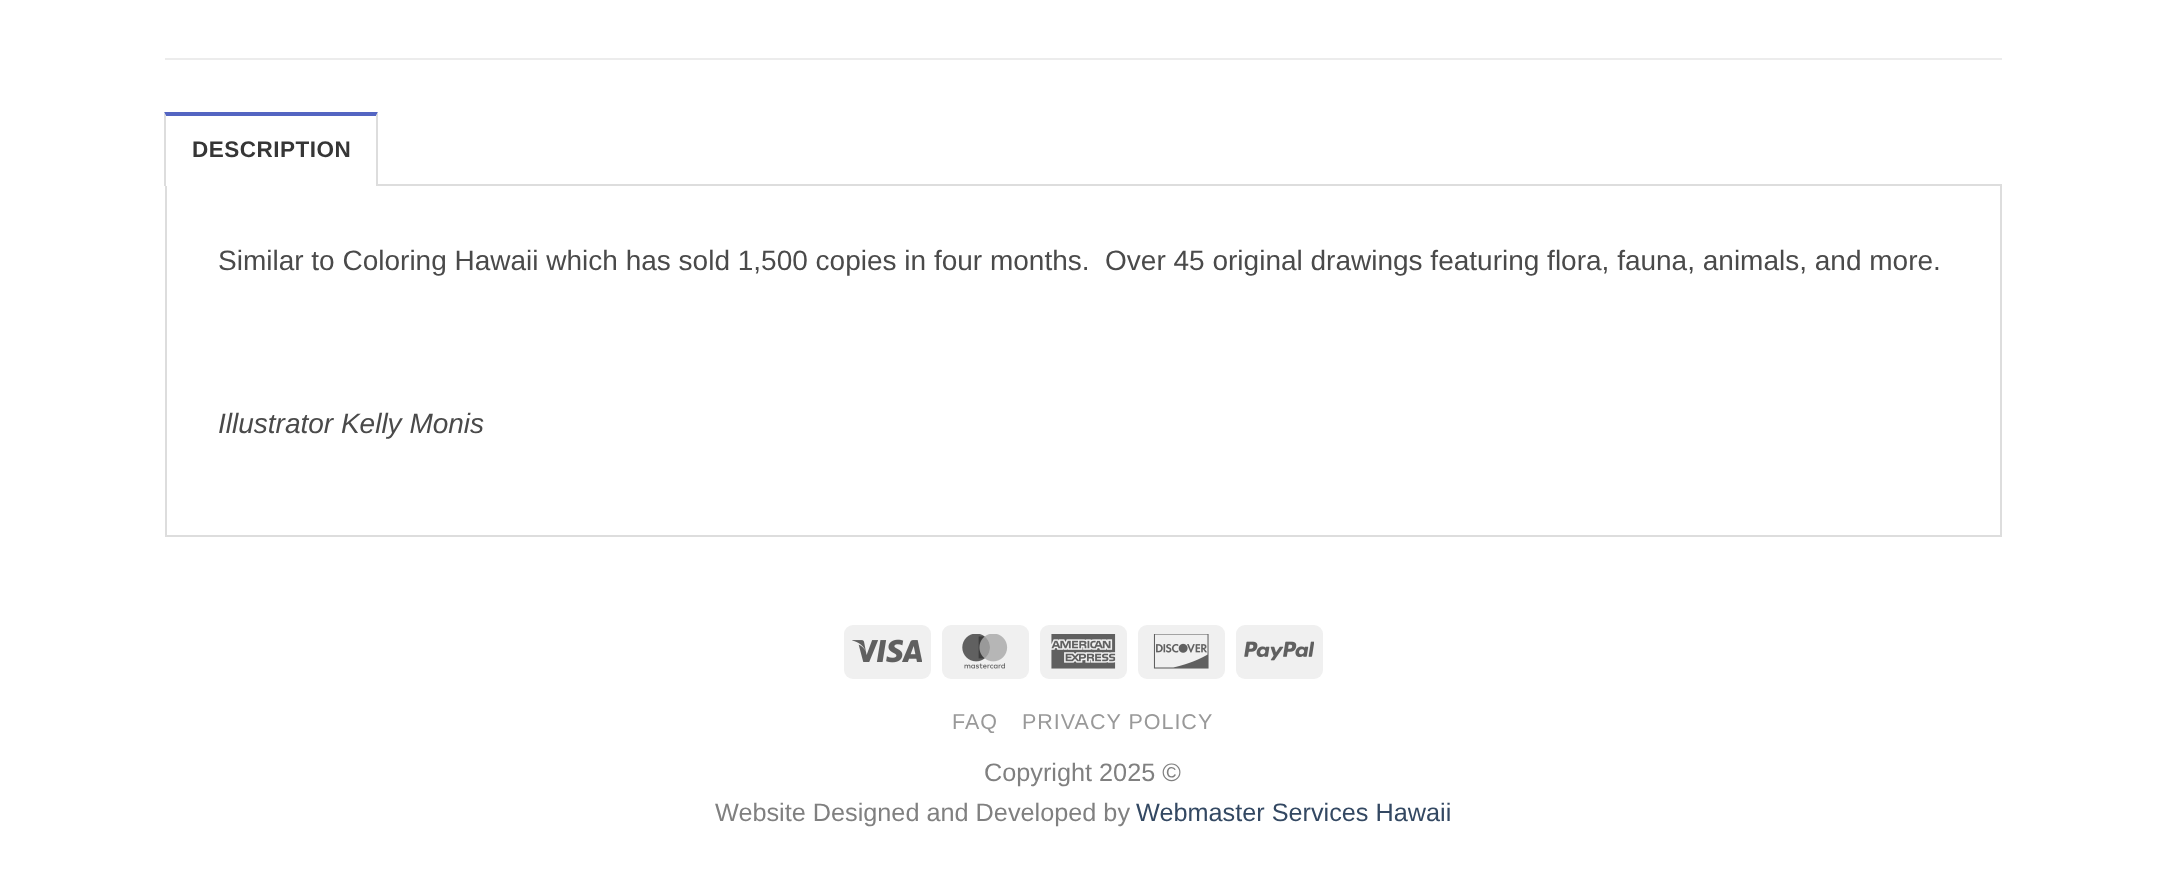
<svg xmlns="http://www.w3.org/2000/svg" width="2164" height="891">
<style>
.a{font:bold 22.5px Liberation Sans;letter-spacing:0.5px;fill:#363636}
.b{font:28px Liberation Sans;fill:#4a4a4a}
.c{font:italic 28px Liberation Sans;fill:#4a4a4a}
.d{font:21.5px Liberation Sans;letter-spacing:1px;fill:#999}
.e{font:25.25px Liberation Sans;fill:#808080}
.f{font:25.25px Liberation Sans;fill:#334862}
</style>
<rect width="100%" height="100%" fill="#fff"/>
<path fill="#ececec" d="M165 58h1837v2H165z"/>
<path fill="none" stroke="#ddd" stroke-width="2" d="M166 185h1835v351H166z"/>
<path fill="#fff" d="M165 184h213v2H165z"/>
<path fill="#5465c2" d="M164 112h214l-2 4h-210z"/>
<path fill="#ddd" d="M378 112v74h-2v-70z"/>
<path fill="#ddd" d="M164 186v-74l2 4v70z"/>
<rect fill="#f0f0f0" x="844" y="625" width="87" height="54" rx="9"/>
<image href="1.png" x="852" y="639" width="70" height="24"/>
<rect fill="#f0f0f0" x="942" y="625" width="87" height="54" rx="9"/>
<image href="2.png" x="962" y="634" width="46" height="35"/>
<rect fill="#f0f0f0" x="1040" y="625" width="87" height="54" rx="9"/>
<image href="3.png" x="1051" y="634" width="65" height="35"/>
<rect fill="#f0f0f0" x="1138" y="625" width="87" height="54" rx="9"/>
<image href="4.png" x="1153" y="634" width="56" height="35"/>
<rect fill="#f0f0f0" x="1236" y="625" width="87" height="54" rx="9"/>
<image href="5.png" x="1244" y="641" width="70" height="20"/>
<text class="a" x="192" y="157">DESCRIPTION</text>
<text class="b" xml:space="preserve" x="218" y="270">Similar to Coloring Hawaii which has sold 1,500 copies in four months.  Over 45 original drawings featuring flora, fauna, animals, and more.</text>
<text class="c" x="218" y="433">Illustrator Kelly Monis</text>
<text class="d" x="952" y="729">FAQ</text>
<text class="d" x="1022" y="729">PRIVACY POLICY</text>
<text class="e" x="984" y="781">Copyright 2025 ©</text>
<text class="e" x="715" y="821">Website Designed and Developed by</text>
<text class="f" x="1136" y="821">Webmaster Services Hawaii</text>
</svg>
